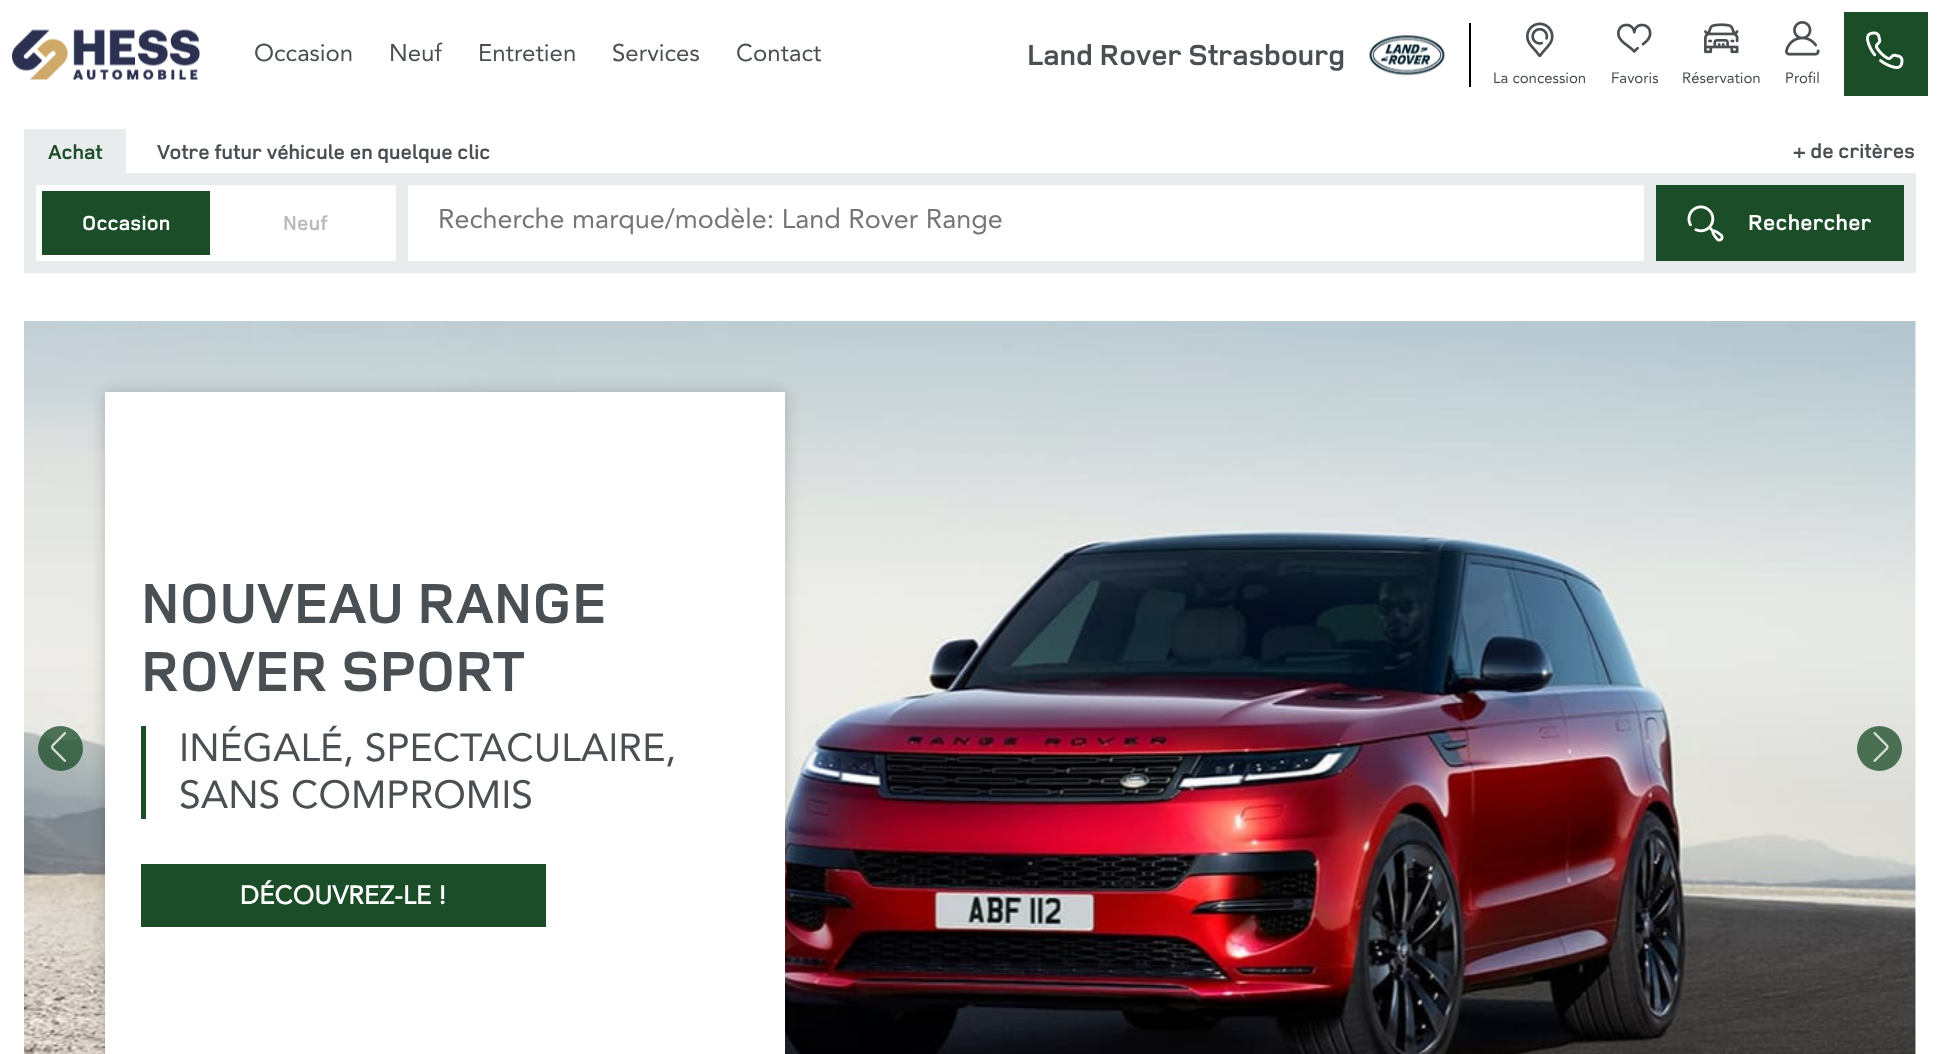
<svg xmlns="http://www.w3.org/2000/svg" width="1939" height="1054">
<style>
.a{font:24px 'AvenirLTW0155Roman';fill:#4a4f54}
.b{font:bold 30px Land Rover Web;fill:#4a4f54}
.c{font:15px 'AvenirLTW0155Roman';fill:#4a4f54}
.d{font:bold 21px Land Rover Web;fill:#1c4d29}
.e{font:bold 21px Land Rover Web;fill:#4a4f54}
.f{font:bold 21px Land Rover Web;letter-spacing:0.25px;fill:#fff}
.g{font:bold 21px Land Rover Web;letter-spacing:0.25px;fill:#bbb}
.h{font:27px 'AvenirLTW0155Roman';fill:#757575}
.i{font:bold 22.5px Land Rover Web;letter-spacing:0.25px;fill:#fff}
.j{font:bold 58.5px Land Rover Web;fill:#4a4f54}
.k{font:39px 'AvenirLTW0155Roman';fill:#4a4f54}
.l{font:bold 25.5px 'AvenirLTW0155Roman';letter-spacing:0.25px;fill:#fff}
</style>
<rect width="100%" height="100%" fill="#fff"/>
<image href="1.png" x="12" y="29" width="188" height="51"/>
<image href="2.png" x="1369" y="34" width="76" height="42"/>
<path fill="#000" d="M1469 23h2v64H1469z"/>
<image href="3.png" x="1526" y="22" width="28" height="35"/>
<image href="4.png" x="1617" y="23" width="35" height="30"/>
<image href="5.png" x="1704" y="23" width="35" height="31"/>
<image href="6.png" x="1785" y="21" width="35" height="35"/>
<path fill="#1c4d29" d="M1844 12h84v84H1844z"/>
<image href="7.png" x="1866" y="31" width="38" height="38"/>
<path fill="#e9ecec" d="M24 129h102v44H24z"/>
<path fill="#e9ecec" d="M24 173h1892v100H24z"/>
<path fill="#1c4d29" stroke="#fff" stroke-width="6" d="M39 188h174v70H39z"/>
<path fill="#fff" d="M216 185h180v76H216z"/>
<path fill="#fff" d="M408 185h1236v76H408z"/>
<path fill="#1c4d29" d="M1656 185h248v76H1656z"/>
<image href="8.png" x="1687" y="205" width="37" height="37"/>
<image href="9.png" x="24" y="321" width="1892" height="733"/>
<path fill="#00000030" filter="blur(7.5px)" d="M105 392h680v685H105z"/>
<path fill="#fff" d="M105 392h680v662H105z"/>
<path fill="#1c4d29" d="M141 726h5v93H141z"/>
<path fill="#1c4d29" d="M141 864h405v63H141z"/>
<circle fill="#1c4d29c4" cx="60.5" cy="748.5" r="22.5"/>
<image href="10.png" x="51" y="732" width="16" height="30"/>
<circle fill="#1c4d29c4" cx="1879.5" cy="748.5" r="22.5"/>
<image href="11.png" x="1873" y="732" width="16" height="30"/>
<text class="a" x="254" y="61">Occasion</text>
<text class="a" x="389" y="61">Neuf</text>
<text class="a" x="478" y="61">Entretien</text>
<text class="a" x="612" y="61">Services</text>
<text class="a" x="736" y="61">Contact</text>
<text class="b" x="1027" y="65">Land Rover Strasbourg</text>
<text class="c" x="1493" y="83">La concession</text>
<text class="c" x="1611" y="83">Favoris</text>
<text class="c" x="1682" y="83">Réservation</text>
<text class="c" x="1785" y="83">Profil</text>
<text class="d" x="48" y="159">Achat</text>
<text class="e" x="157" y="159">Votre futur véhicule en quelque clic</text>
<text class="e" x="1793" y="158">+ de critères</text>
<text class="f" x="82" y="230">Occasion</text>
<text class="g" x="283" y="230">Neuf</text>
<text class="h" x="438" y="228">Recherche marque/modèle: Land Rover Range</text>
<text class="i" x="1748" y="230">Rechercher</text>
<text class="j" x="141" y="623">NOUVEAU RANGE</text>
<text class="j" x="141" y="691">ROVER SPORT</text>
<text class="k" x="179" y="761">INÉGALÉ, SPECTACULAIRE,</text>
<text class="k" x="179" y="808">SANS COMPROMIS</text>
<text class="l" x="240" y="904">DÉCOUVREZ-LE !</text>
</svg>
